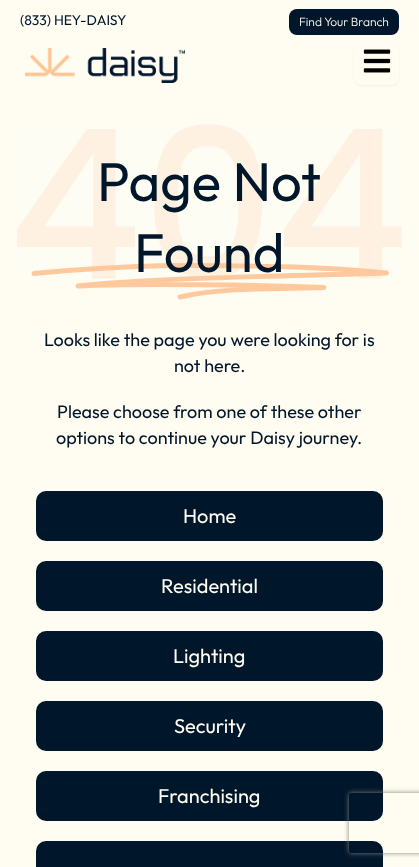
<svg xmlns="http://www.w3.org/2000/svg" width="419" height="867">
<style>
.a{font:14px Outfit;fill:#00172b}
.b{font:300 12px Outfit;fill:#fffcf2}
.c{font:54.5px Outfit;fill:#00172b}
.d{font:18px Outfit;fill:#00172b}
.e{font:20px Outfit;fill:#fffcf2}
</style>
<defs>
<clipPath id="clip1"><path d="M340 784h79v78h-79zm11 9h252c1 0 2 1 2 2v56c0 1-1 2-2 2h-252c-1 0-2-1-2-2v-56c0-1 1-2 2-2z" clip-rule="evenodd"/></clipPath>
</defs>
<rect width="100%" height="100%" fill="#fffcf2"/>
<rect fill="#00172b" x="289" y="9" width="110" height="26" rx="8"/>
<image href="1.png" x="25" y="48" width="160" height="35"/>
<rect fill="#0000000d" filter="blur(1px)" x="354" y="47" width="45" height="39" rx="8"/>
<rect fill="#fffcf2" x="354" y="46" width="45" height="39" rx="8"/>
<image href="2.png" x="363" y="49" width="28" height="24"/>
<image href="3.png" x="17" y="124" width="385" height="155"/>
<path fill="none" stroke="#ffc89d" stroke-width="4.9" stroke-linecap="round" stroke-linejoin="round" d="M34 273.5c36-3.5 110-8.5 146-8c89 .5 139 .5 206.5 7.5c-81.5 3-227 4-308.5 13c60.5-3 186.5-1 246 1.5c-41 1.5-100.5-.5-144 9.5"/>
<rect fill="#00172b" x="36" y="491" width="347" height="50" rx="10"/>
<rect fill="#00172b" x="36" y="561" width="347" height="50" rx="10"/>
<rect fill="#00172b" x="36" y="631" width="347" height="50" rx="10"/>
<rect fill="#00172b" x="36" y="701" width="347" height="50" rx="10"/>
<rect fill="#00172b" x="36" y="771" width="347" height="50" rx="10"/>
<rect fill="#00172b" x="36" y="841" width="347" height="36" rx="10"/>
<g clip-path="url(#clip1)">
<rect fill="#808080" filter="blur(2.5px)" x="349" y="793" width="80" height="60" rx="2"/>
</g>
<text class="a" x="20" y="25">(833) HEY-DAISY</text>
<text class="b" x="299" y="26">Find Your Branch</text>
<text class="c" x="97" y="201">Page Not</text>
<text class="c" x="134" y="272">Found</text>
<text class="d" x="44" y="346">Looks like the page you were looking for is</text>
<text class="d" x="174" y="372">not here.</text>
<text class="d" x="57" y="418">Please choose from one of these other</text>
<text class="d" x="56" y="444">options to continue your Daisy journey.</text>
<text class="e" x="183" y="523">Home</text>
<text class="e" x="161" y="593">Residential</text>
<text class="e" x="173" y="663">Lighting</text>
<text class="e" x="174" y="733">Security</text>
<text class="e" x="158" y="803">Franchising</text>
</svg>
